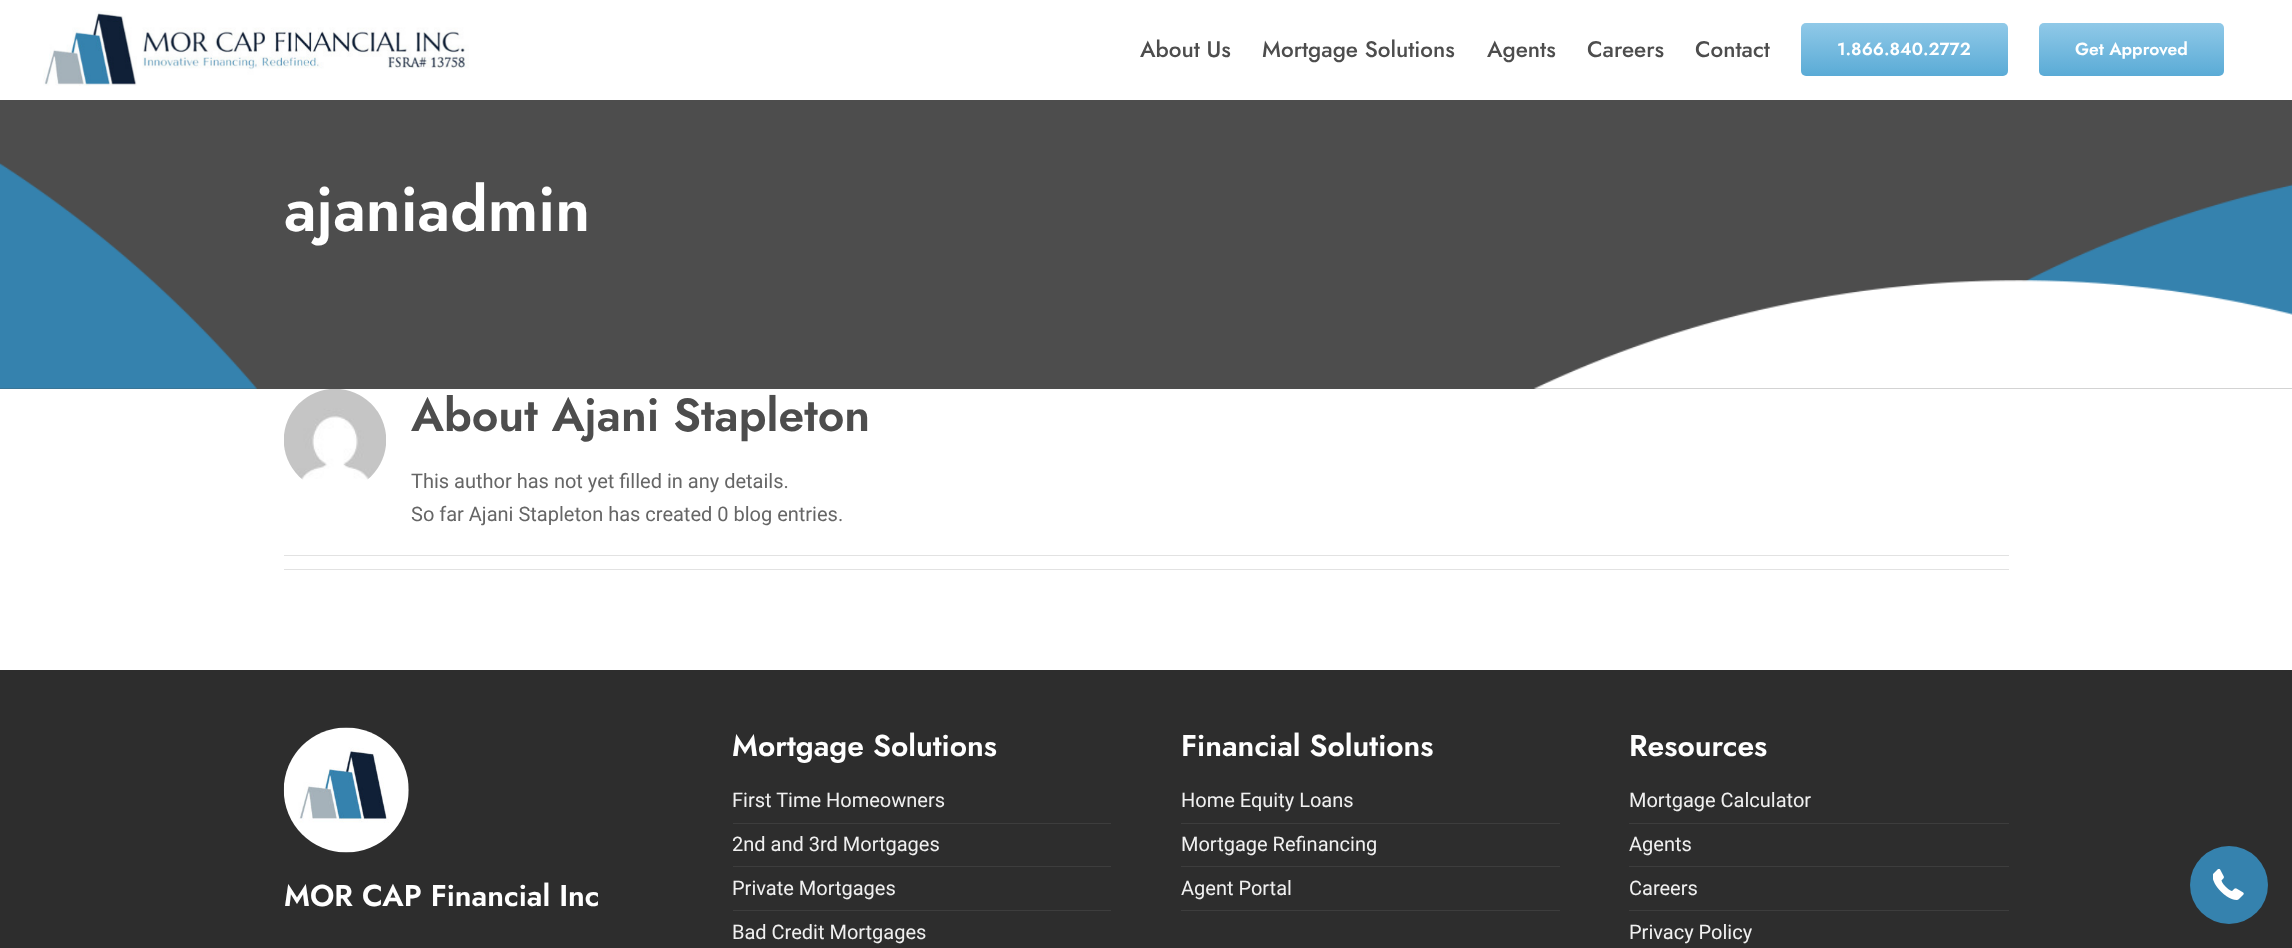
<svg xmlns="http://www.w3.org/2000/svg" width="2292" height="948">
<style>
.a{font:500 22.5px Jost;fill:#4d4d4d}
.b{font:600 17.5px Jost;fill:#fff}
.c{font:600 62.5px Jost;fill:#fff}
.d{font:600 46.25px Jost;fill:#4d4d4d}
.e{font:20px Roboto;fill:#666}
.f{font:600 30px Jost;fill:#fff}
.g{font:20px Roboto;fill:#f0f0f0}
</style>
<defs>
<linearGradient id="g1" gradientUnits="userSpaceOnUse" x1="1904" y1="76" x2="1904" y2="23"><stop offset="0" stop-color="#5aabd6"/><stop offset="1" stop-color="#90c9e8"/></linearGradient>
<linearGradient id="g2" gradientUnits="userSpaceOnUse" x1="2131" y1="76" x2="2131" y2="23"><stop offset="0" stop-color="#5aabd6"/><stop offset="1" stop-color="#90c9e8"/></linearGradient>
</defs>
<rect width="100%" height="100%" fill="#fff"/>
<image href="1.png" x="43" y="11" width="426" height="75"/>
<rect fill="url(#g1)" x="1801" y="23" width="207" height="53" rx="5"/>
<rect fill="url(#g2)" x="2039" y="23" width="185" height="53" rx="5"/>
<path fill="#4d4d4d" d="M0 100h2292v289H0z"/>
<image href="2.png" x="0" y="163" width="2292" height="226"/>
<image href="3.png" x="284" y="389" width="102" height="91"/>
<path fill="#e2e2e2" d="M284 555h1725v1H284z"/>
<path fill="#e2e2e2" d="M284 569h1725v1H284z"/>
<path fill="#2d2d2d" d="M0 670h2292v278H0z"/>
<image href="4.png" x="283" y="727" width="126" height="126"/>
<path fill="#3d3d3d" d="M733 823h378v1H733z"/>
<path fill="#3d3d3d" d="M733 866h378v1H733z"/>
<path fill="#3d3d3d" d="M733 910h378v1H733z"/>
<path fill="#3d3d3d" d="M1181 823h379v1H1181z"/>
<path fill="#3d3d3d" d="M1181 866h379v1H1181z"/>
<path fill="#3d3d3d" d="M1181 910h379v1H1181z"/>
<path fill="#3d3d3d" d="M1629 823h380v1H1629z"/>
<path fill="#3d3d3d" d="M1629 866h380v1H1629z"/>
<path fill="#3d3d3d" d="M1629 910h380v1H1629z"/>
<circle fill="#3582ae" cx="2229" cy="885" r="39"/>
<image href="5.png" x="2213" y="869" width="31" height="31"/>
<text class="a" x="1140" y="57">About Us</text>
<text class="a" x="1262" y="57">Mortgage Solutions</text>
<text class="a" x="1487" y="57">Agents</text>
<text class="a" x="1587" y="57">Careers</text>
<text class="a" x="1695" y="57">Contact</text>
<text class="b" x="1837" y="55">1.866.840.2772</text>
<text class="b" x="2075" y="55">Get Approved</text>
<text class="c" x="284" y="231">ajaniadmin</text>
<text class="d" x="411" y="431">About Ajani Stapleton</text>
<text class="e" x="411" y="488">This author has not yet filled in any details.</text>
<text class="e" x="411" y="521">So far Ajani Stapleton has created 0 blog entries.</text>
<text class="f" x="284" y="906">MOR CAP Financial Inc</text>
<text class="f" x="732" y="756">Mortgage Solutions</text>
<text class="g" x="732" y="807">First Time Homeowners</text>
<text class="g" x="732" y="851">2nd and 3rd Mortgages</text>
<text class="g" x="732" y="895">Private Mortgages</text>
<text class="g" x="732" y="939">Bad Credit Mortgages</text>
<text class="f" x="1181" y="756">Financial Solutions</text>
<text class="g" x="1181" y="807">Home Equity Loans</text>
<text class="g" x="1181" y="851">Mortgage Refinancing</text>
<text class="g" x="1181" y="895">Agent Portal</text>
<text class="f" x="1629" y="756">Resources</text>
<text class="g" x="1629" y="807">Mortgage Calculator</text>
<text class="g" x="1629" y="851">Agents</text>
<text class="g" x="1629" y="895">Careers</text>
<text class="g" x="1629" y="939">Privacy Policy</text>
</svg>
